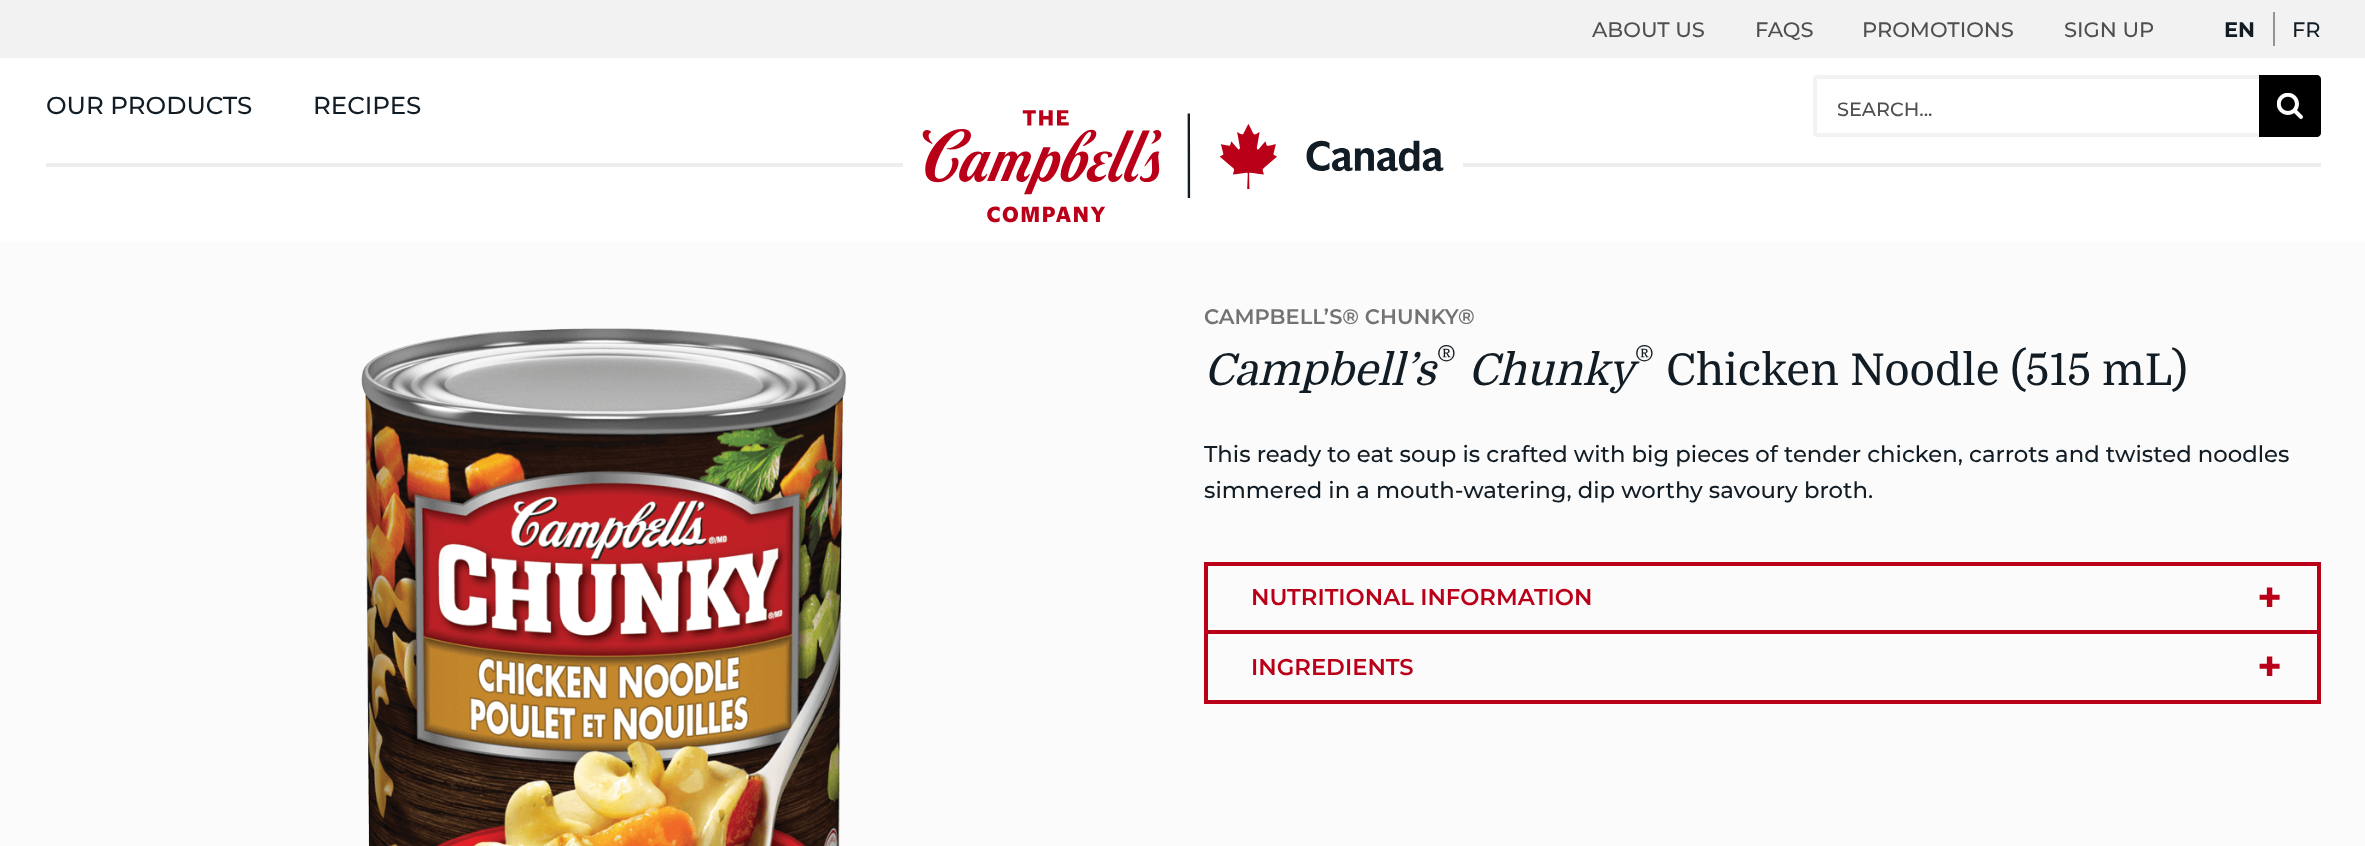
<svg xmlns="http://www.w3.org/2000/svg" width="2365" height="846">
<style>
.a{font:500 21px Montserrat;fill:#4f4f4f}
.b{font:bold 21px Montserrat;fill:#111c24}
.c{font:500 21px Montserrat;fill:#111c24}
.d{font:500 24.5px Montserrat;fill:#111c24}
.e{font:500 19.25px Montserrat;fill:#4f4f4f}
.f{font:600 21px Montserrat;fill:#737373}
.g{font:italic 43.75px Domine;fill:#111c24}
.h{font:33px Domine;fill:#111c24}
.i{font:43.75px Domine;fill:#111c24}
.j{font:500 22.75px Montserrat;fill:#111c24}
.k{font:600 22.75px Montserrat;fill:#ba0018}
.l{font:bold 42px Montserrat;fill:#ba0018}
</style>
<defs>
<clipPath id="clip1"><path d="M1838 96h458v25H1838z"/></clipPath>
</defs>
<rect width="100%" height="100%" fill="#fbfbfb"/>
<path fill="#fff" d="M0 58h2365v184H0z"/>
<path fill="#f2f2f2" d="M0 0h2365v58H0z"/>
<path fill="#949494" d="M2273 12h2v34H2273z"/>
<path fill="#eee" d="M46 163h2275v4H46z"/>
<path fill="#fff" d="M903 163h560v4H903z"/>
<image href="1.png" x="922" y="110" width="522" height="113"/>
<rect fill="none" stroke="#f2f2f2" stroke-width="4" x="1815" y="77" width="504" height="58" rx="2"/>
<path fill="#000" d="M2259 75h58c2 0 4 2 4 4v54c0 2-2 4-4 4h-58z"/>
<image href="2.png" x="2277" y="93" width="26" height="26"/>
<image href="3.png" x="361" y="328" width="486" height="518"/>
<path fill="#ba0018" d="M1204 562h1117v4H1204z"/>
<path fill="#ba0018" d="M2317 562h4v70H2317z"/>
<path fill="#ba0018" d="M1204 630h1117v4H1204z"/>
<path fill="#ba0018" d="M1204 562h4v70H1204z"/>
<path fill="#ba0018" d="M2317 632h4v72H2317z"/>
<path fill="#ba0018" d="M1204 700h1117v4H1204z"/>
<path fill="#ba0018" d="M1204 632h4v72H1204z"/>
<text class="a" x="1592" y="37">ABOUT US</text>
<text class="a" x="1755" y="37">FAQS</text>
<text class="a" x="1862" y="37">PROMOTIONS</text>
<text class="a" x="2064" y="37">SIGN UP</text>
<text class="b" x="2224" y="37">EN</text>
<text class="c" x="2292" y="37">FR</text>
<text class="d" x="46" y="114">OUR PRODUCTS</text>
<text class="d" x="313" y="114">RECIPES</text>
<g clip-path="url(#clip1)">
<text class="e" x="1837" y="116">SEARCH...</text>
</g>
<text class="f" x="1204" y="324">CAMPBELL’S® CHUNKY®</text>
<text class="g" x="1204" y="385">Campbell’s</text>
<text class="h" x="1436" y="369">®</text>
<text class="g" x="1468" y="385">Chunky</text>
<text class="h" x="1634" y="369">®</text>
<text class="i" x="1666" y="385">Chicken Noodle (515 mL)</text>
<text class="j" x="1204" y="462">This ready to eat soup is crafted with big pieces of tender chicken, carrots and twisted noodles</text>
<text class="j" x="1204" y="498">simmered in a mouth-watering, dip worthy savoury broth.</text>
<text class="k" x="1251" y="605">NUTRITIONAL INFORMATION</text>
<text class="l" x="2257" y="612">+</text>
<text class="k" x="1251" y="675">INGREDIENTS</text>
<text class="l" x="2257" y="681">+</text>
</svg>
